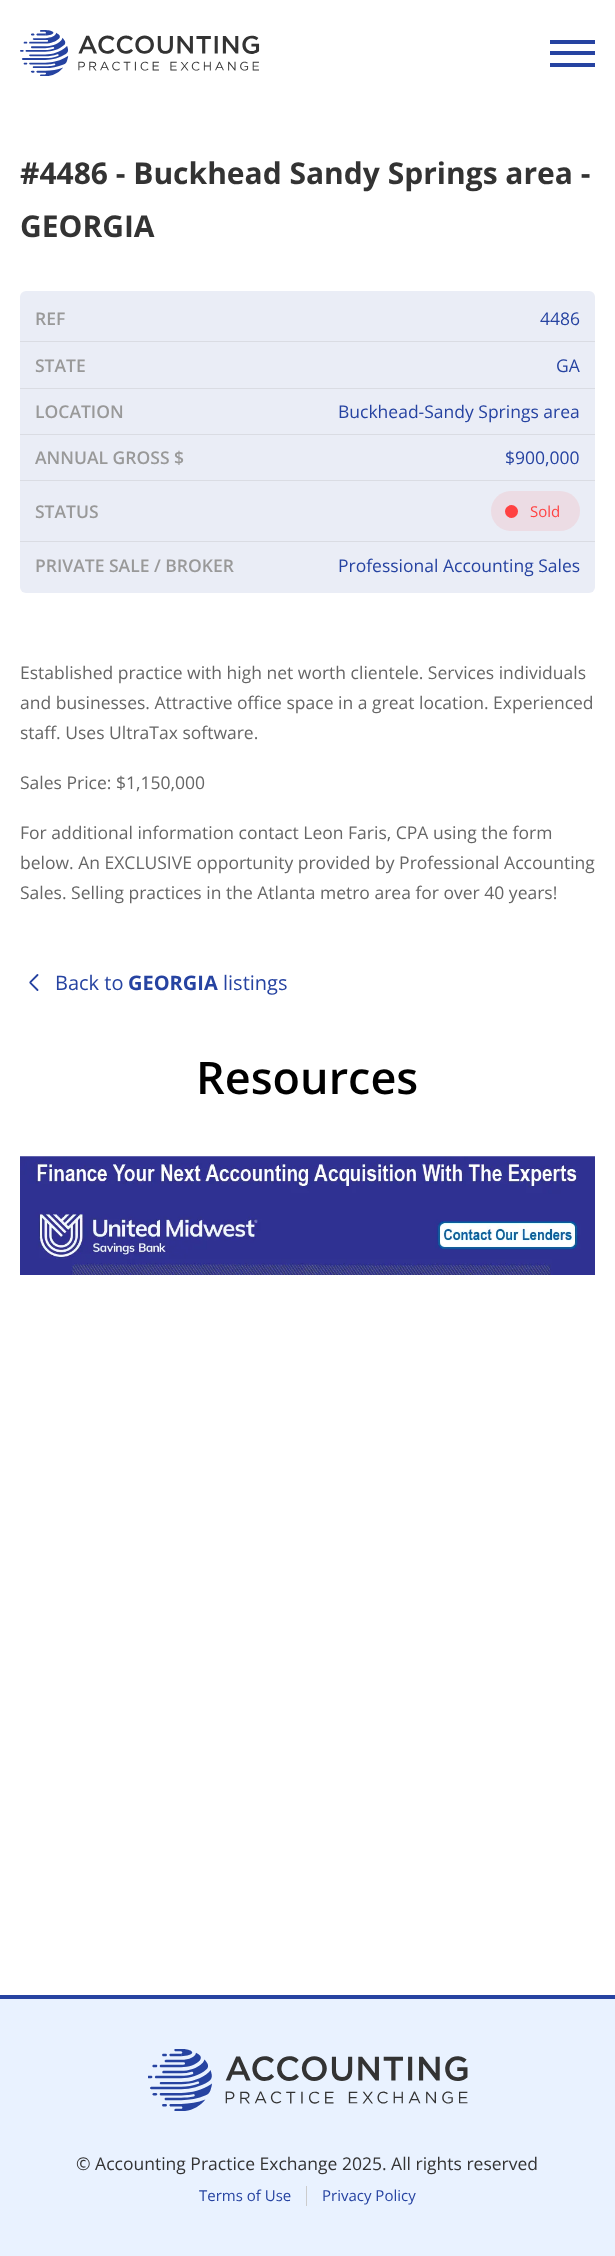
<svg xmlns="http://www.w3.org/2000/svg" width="615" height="2256">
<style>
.a{font:bold 30px Open Sans;fill:#333}
.b{font:600 17.5px Open Sans;fill:#999}
.c{font:17.5px Open Sans;fill:#2643a1}
.d{font:15px Open Sans;fill:#ff4242}
.e{font:17.5px Open Sans;fill:#666}
.f{font:20px Open Sans;fill:#2643a1}
.g{font:bold 20px Open Sans;fill:#2643a1}
.h{font:600 45px Open Sans;fill:#000}
.i{font:17.5px Open Sans;fill:#333}
.j{font:15px Open Sans;fill:#2643a1}
</style>
<rect width="100%" height="100%" fill="#fff"/>
<image href="1.png" x="20" y="30" width="240" height="46"/>
<path fill="#2643a1" d="M550 40h45v4H550z"/>
<path fill="#2643a1" d="M550 51h45v4H550z"/>
<path fill="#2643a1" d="M550 63h45v4H550z"/>
<rect fill="#eaedf6" x="20" y="291" width="575" height="302" rx="6"/>
<path fill="#dadce3" d="M20 341h575v1H20z"/>
<path fill="#dadce3" d="M20 388h575v1H20z"/>
<path fill="#dadce3" d="M20 434h575v1H20z"/>
<path fill="#dadce3" d="M20 480h575v1H20z"/>
<path fill="#dadce3" d="M20 541h575v1H20z"/>
<rect fill="#ecdce4" x="491" y="491" width="89" height="40" rx="20"/>
<circle fill="#ff4242" cx="511.5" cy="511.5" r="6.5"/>
<image href="2.png" x="29" y="974" width="10" height="17"/>
<image href="3.png" x="20" y="1156" width="575" height="119"/>
<path fill="#e9f2ff" d="M0 1999h615v257H0z"/>
<path fill="#2643a1" d="M0 1995h615v4H0z"/>
<image href="4.png" x="148" y="2049" width="320" height="62"/>
<path fill="#ccc" d="M306 2186h1v20H306z"/>
<text class="a" x="20" y="184">#4486 - Buckhead Sandy Springs area -</text>
<text class="a" x="20" y="237">GEORGIA</text>
<text class="b" x="35" y="325">REF</text>
<text class="c" x="540" y="325">4486</text>
<text class="b" x="35" y="372">STATE</text>
<text class="c" x="556" y="372">GA</text>
<text class="b" x="35" y="418">LOCATION</text>
<text class="c" x="338" y="418">Buckhead-Sandy Springs area</text>
<text class="b" x="35" y="464">ANNUAL GROSS $</text>
<text class="c" x="505" y="464">$900,000</text>
<text class="b" x="35" y="518">STATUS</text>
<text class="d" x="530" y="517">Sold</text>
<text class="b" x="35" y="572">PRIVATE SALE / BROKER</text>
<text class="c" x="338" y="572">Professional Accounting Sales</text>
<text class="e" x="20" y="679">Established practice with high net worth clientele. Services individuals</text>
<text class="e" x="20" y="709">and businesses. Attractive office space in a great location. Experienced</text>
<text class="e" x="20" y="739">staff. Uses UltraTax software.</text>
<text class="e" x="20" y="789">Sales Price: $1,150,000</text>
<text class="e" x="20" y="839">For additional information contact Leon Faris, CPA using the form</text>
<text class="e" x="20" y="869">below. An EXCLUSIVE opportunity provided by Professional Accounting</text>
<text class="e" x="20" y="899">Sales. Selling practices in the Atlanta metro area for over 40 years!</text>
<text class="f" x="55" y="990">Back to</text>
<text class="g" x="128" y="990">GEORGIA</text>
<text class="f" x="223" y="990">listings</text>
<text class="h" x="196" y="1094">Resources</text>
<text class="i" x="76" y="2170">© Accounting Practice Exchange 2025. All rights reserved</text>
<text class="j" x="199" y="2201">Terms of Use</text>
<text class="j" x="322" y="2201">Privacy Policy</text>
</svg>
